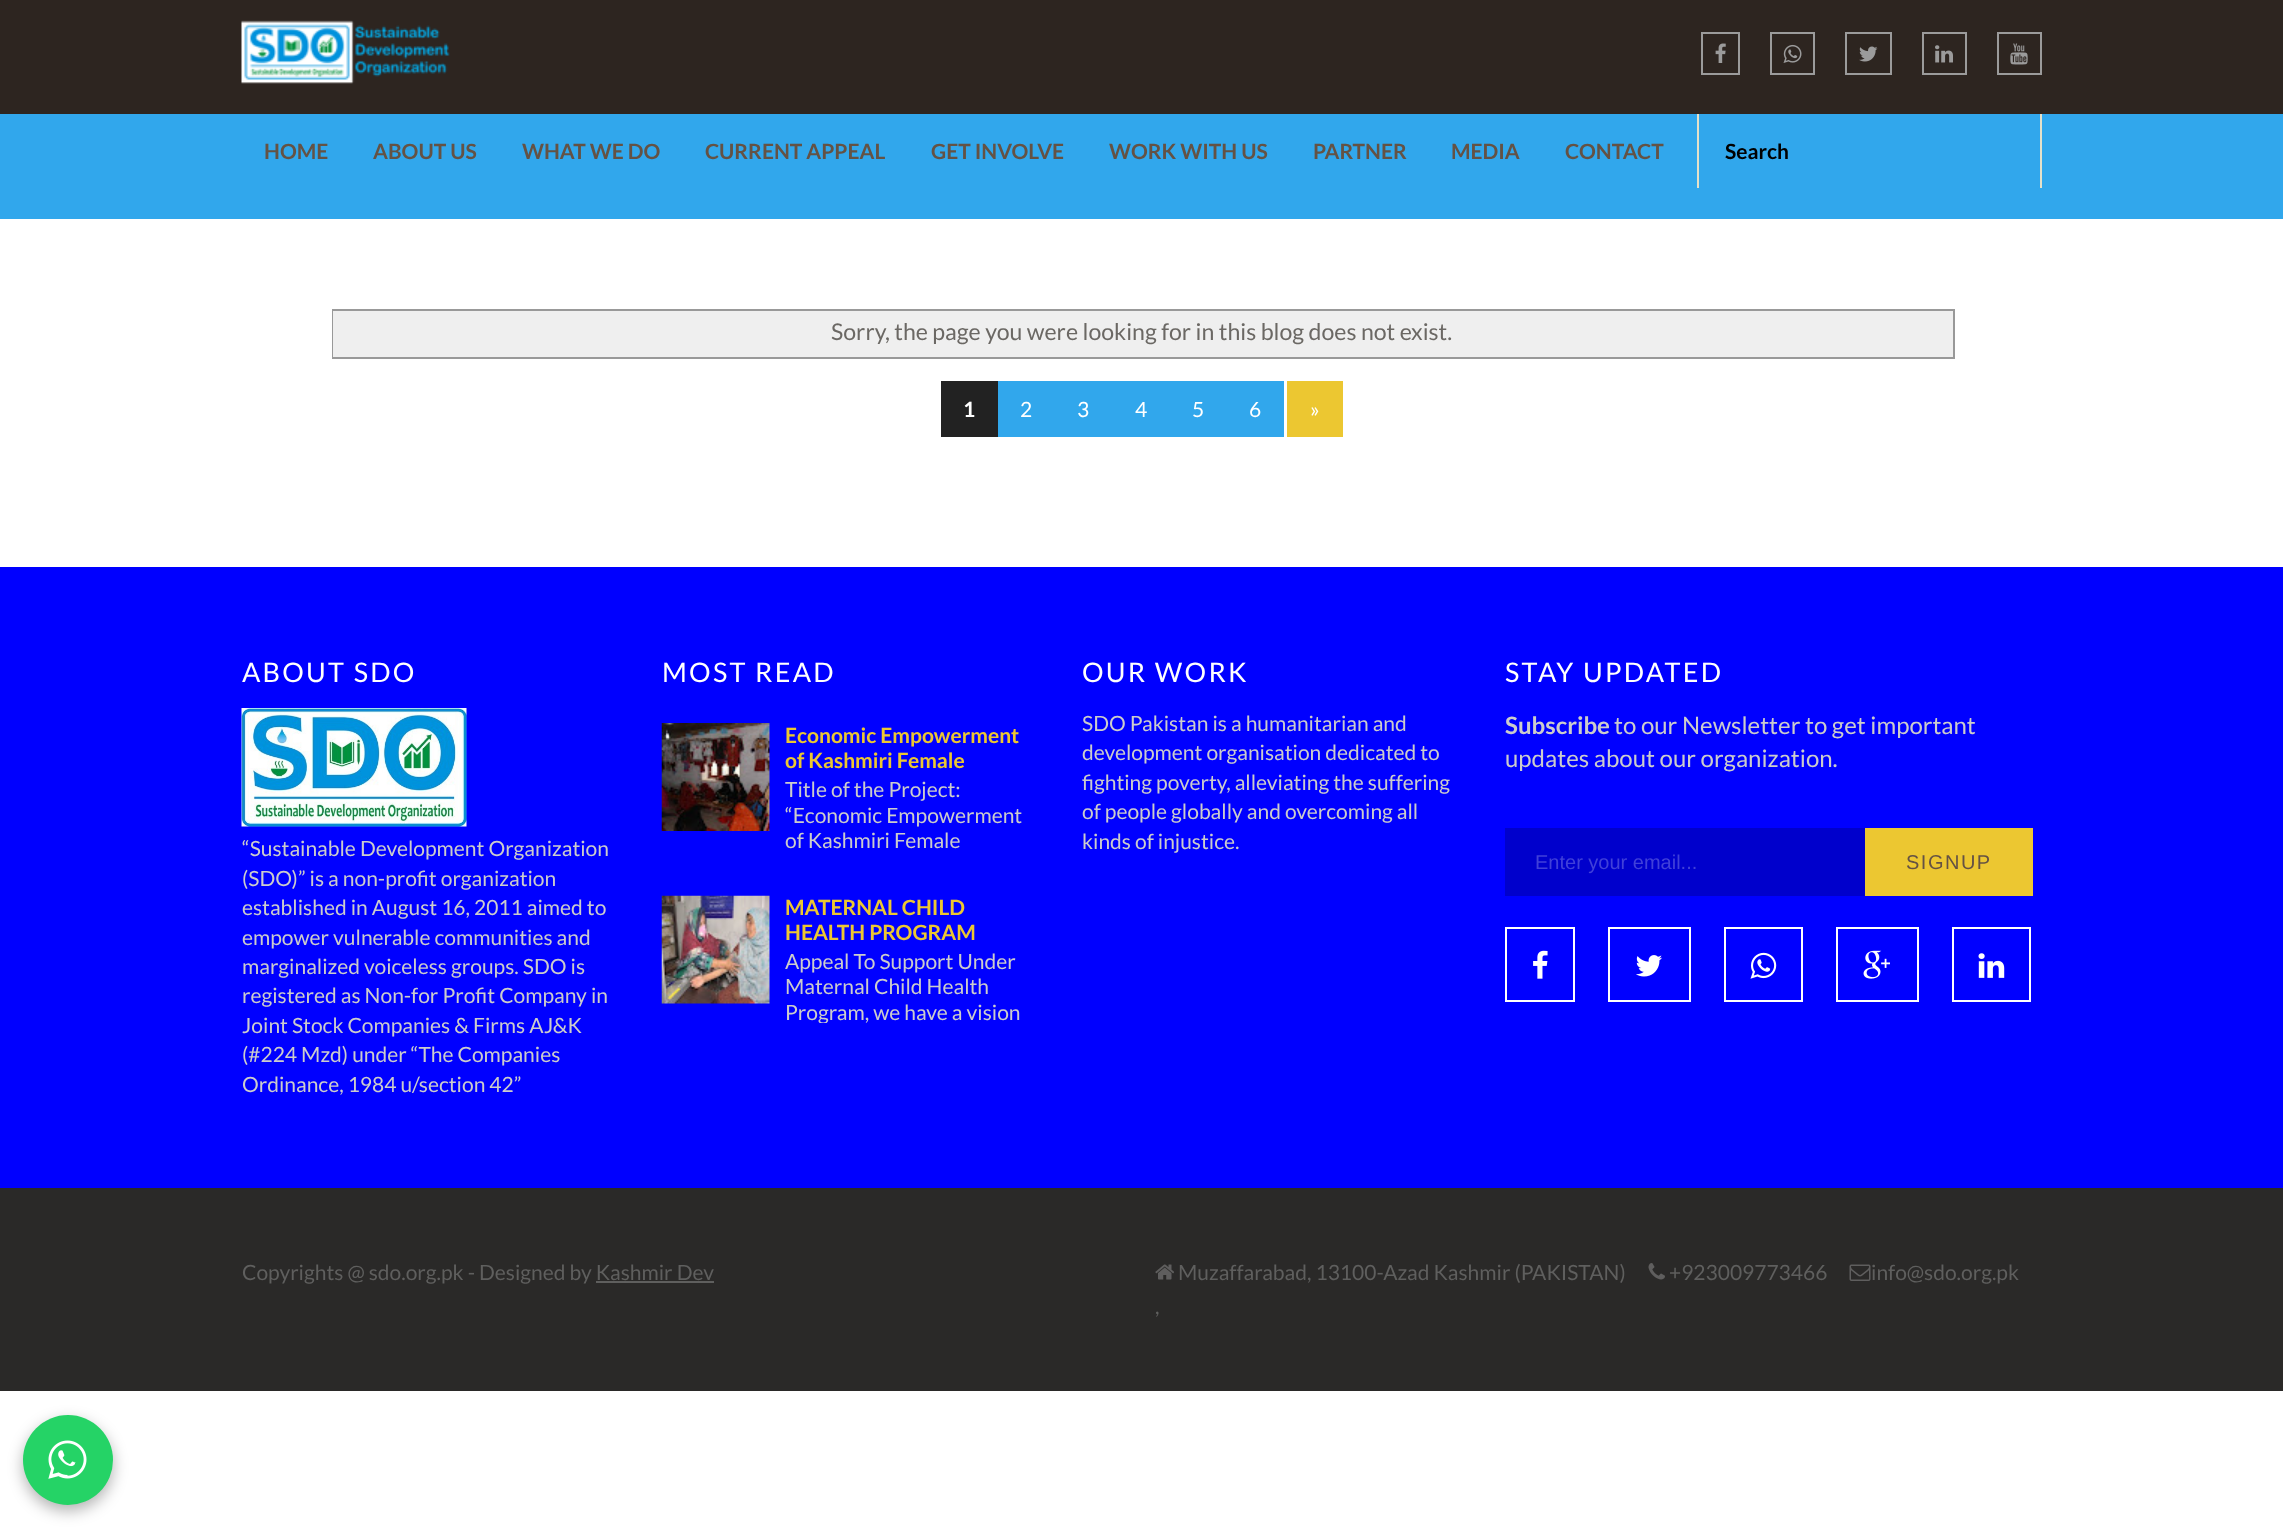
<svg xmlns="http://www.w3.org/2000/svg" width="2283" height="1527">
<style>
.a{font:bold 21px Lato;fill:#645244}
.b{font:bold 21px Lato;fill:#000}
.c{font:23.1px Lato;fill:#6b6864}
.d{font:bold 21px Lato;fill:#fff}
.e{font:21px Lato;fill:#fff}
.f{font:27px Lato;letter-spacing:2.25px;fill:#fff}
.g{font:21px Lato;fill:#ccc}
.h{font:bold 21px Lato;fill:#ecc731}
.i{font:bold 24px Lato;fill:#ccc}
.j{font:24px Lato;fill:#ccc}
.k{font:20px Liberation Sans;fill:#4040d9}
.l{font:20px Liberation Sans;letter-spacing:1.5px;fill:#645244}
.m{font:21px Lato;fill:#5f5f5e}
</style>
<defs>
<clipPath id="clip1"><path d="M662 896h375v127H662z"/></clipPath>
</defs>
<rect width="100%" height="100%" fill="#fff"/>
<path fill="#2d2520" d="M0 0h2283v114H0z"/>
<image href="1.png" x="241" y="20" width="209" height="64"/>
<path fill="none" stroke="#9b9b9b" stroke-width="2" d="M1702 33h37v41H1702z"/>
<image href="2.png" x="1715" y="43" width="11" height="20"/>
<path fill="none" stroke="#9b9b9b" stroke-width="2" d="M1771 33h43v41H1771z"/>
<image href="3.png" x="1783" y="44" width="19" height="19"/>
<path fill="none" stroke="#9b9b9b" stroke-width="2" d="M1846 33h45v41H1846z"/>
<image href="4.png" x="1859" y="46" width="19" height="16"/>
<path fill="none" stroke="#9b9b9b" stroke-width="2" d="M1923 33h43v41H1923z"/>
<image href="5.png" x="1935" y="45" width="18" height="18"/>
<path fill="none" stroke="#9b9b9b" stroke-width="2" d="M1998 33h43v41H1998z"/>
<image href="6.png" x="2010" y="43" width="18" height="22"/>
<path fill="#31a7ec" d="M0 114h2283v105H0z"/>
<path fill="#e6e1c9" d="M2040 114h2v74H2040z"/>
<path fill="#e6e1c9" d="M1697 114h2v74H1697z"/>
<path fill="none" stroke="#999" stroke-width="2" d="M333 310h1621v48H333z"/>
<path fill="#efefef" d="M333 311h1620v46H333z"/>
<path fill="#222" d="M941 381h57v56H941z"/>
<path fill="#31a7ec" d="M998 381h286v56H998z"/>
<path fill="#ecc731" d="M1287 381h56v56H1287z"/>
<path fill="#00f" d="M0 567h2283v621H0z"/>
<image href="7.png" x="241" y="708" width="226" height="119"/>
<image href="8.png" x="661" y="723" width="109" height="108"/>
<image href="9.png" x="661" y="895" width="109" height="109"/>
<rect fill="#0000004d" filter="blur(7.5px)" x="23" y="1421" width="90" height="90" rx="45"/>
<circle fill="#25d366" cx="68" cy="1460" r="45"/>
<image href="10.png" x="48" y="1440" width="39" height="39"/>
<path fill="#00c" d="M1505 828h360v68H1505z"/>
<path fill="#ecc731" d="M1865 828h168v68H1865z"/>
<path fill="none" stroke="#fff" stroke-width="2" d="M1506 928h68v73H1506z"/>
<image href="11.png" x="1533" y="950" width="15" height="29"/>
<path fill="none" stroke="#fff" stroke-width="2" d="M1609 928h81v73H1609z"/>
<image href="12.png" x="1636" y="955" width="26" height="22"/>
<path fill="none" stroke="#fff" stroke-width="2" d="M1725 928h77v73H1725z"/>
<image href="13.png" x="1750" y="952" width="27" height="27"/>
<path fill="none" stroke="#fff" stroke-width="2" d="M1837 928h81v73H1837z"/>
<image href="14.png" x="1863" y="950" width="27" height="29"/>
<path fill="none" stroke="#fff" stroke-width="2" d="M1953 928h77v73H1953z"/>
<image href="15.png" x="1978" y="953" width="27" height="25"/>
<path fill="#2a2928" d="M0 1188h2283v203H0z"/>
<path fill="#5f5f5e" d="M596 1281h118v2H596z"/>
<image href="16.png" x="1155" y="1264" width="19" height="16"/>
<image href="17.png" x="1648" y="1263" width="17" height="17"/>
<image href="18.png" x="1849" y="1264" width="22" height="17"/>
<text class="a" x="264" y="159">HOME</text>
<text class="a" x="373" y="159">ABOUT US</text>
<text class="a" x="522" y="159">WHAT WE DO</text>
<text class="a" x="705" y="159">CURRENT APPEAL</text>
<text class="a" x="931" y="159">GET INVOLVE</text>
<text class="a" x="1109" y="159">WORK WITH US</text>
<text class="a" x="1313" y="159">PARTNER</text>
<text class="a" x="1451" y="159">MEDIA</text>
<text class="a" x="1565" y="159">CONTACT</text>
<text class="b" x="1725" y="159">Search</text>
<text class="c" x="831" y="340">Sorry, the page you were looking for in this blog does not exist.</text>
<text class="d" x="963" y="417">1</text>
<text class="e" x="1020" y="417">2</text>
<text class="e" x="1077" y="417">3</text>
<text class="e" x="1135" y="417">4</text>
<text class="e" x="1192" y="417">5</text>
<text class="e" x="1249" y="417">6</text>
<text class="e" x="1310" y="417">»</text>
<text class="f" x="242" y="682">ABOUT SDO</text>
<text class="g" x="242" y="856">“Sustainable Development Organization</text>
<text class="g" x="242" y="886">(SDO)” is a non-profit organization</text>
<text class="g" x="242" y="915">established in August 16, 2011 aimed to</text>
<text class="g" x="242" y="945">empower vulnerable communities and</text>
<text class="g" x="242" y="974">marginalized voiceless groups. SDO is</text>
<text class="g" x="242" y="1003">registered as Non-for Profit Company in</text>
<text class="g" x="242" y="1033">Joint Stock Companies &amp; Firms AJ&amp;K</text>
<text class="g" x="242" y="1062">(#224 Mzd) under “The Companies</text>
<text class="g" x="242" y="1092">Ordinance, 1984 u/section 42”</text>
<text class="f" x="662" y="682">MOST READ</text>
<text class="h" x="785" y="743">Economic Empowerment</text>
<text class="h" x="785" y="768">of Kashmiri Female</text>
<text class="g" x="785" y="797">Title of the Project:</text>
<text class="g" x="785" y="823">“Economic Empowerment</text>
<text class="g" x="785" y="848">of Kashmiri Female</text>
<text class="h" x="785" y="915">MATERNAL CHILD</text>
<text class="h" x="785" y="940">HEALTH PROGRAM</text>
<text class="g" x="785" y="969">Appeal To Support Under</text>
<text class="g" x="785" y="994">Maternal Child Health</text>
<g clip-path="url(#clip1)">
<text class="g" x="785" y="1020">Program, we have a vision</text>
</g>
<text class="f" x="1082" y="682">OUR WORK</text>
<text class="g" x="1082" y="731">SDO Pakistan is a humanitarian and</text>
<text class="g" x="1082" y="760">development organisation dedicated to</text>
<text class="g" x="1082" y="790">fighting poverty, alleviating the suffering</text>
<text class="g" x="1082" y="819">of people globally and overcoming all</text>
<text class="g" x="1082" y="849">kinds of injustice.</text>
<text class="f" x="1505" y="682">STAY UPDATED</text>
<text class="i" x="1505" y="734">Subscribe</text>
<text class="j" x="1614" y="734">to our Newsletter to get important</text>
<text class="j" x="1505" y="767">updates about our organization.</text>
<text class="k" x="1535" y="869">Enter your email...</text>
<text class="l" x="1906" y="869">SIGNUP</text>
<text class="m" x="242" y="1280">Copyrights @ sdo.org.pk - Designed by Kashmir Dev</text>
<text class="m" x="1178" y="1280">Muzaffarabad, 13100-Azad Kashmir (PAKISTAN)</text>
<text class="m" x="1669" y="1280">+923009773466</text>
<text class="m" x="1871" y="1280">info@sdo.org.pk</text>
<text class="m" x="1155" y="1314">,</text>
</svg>
